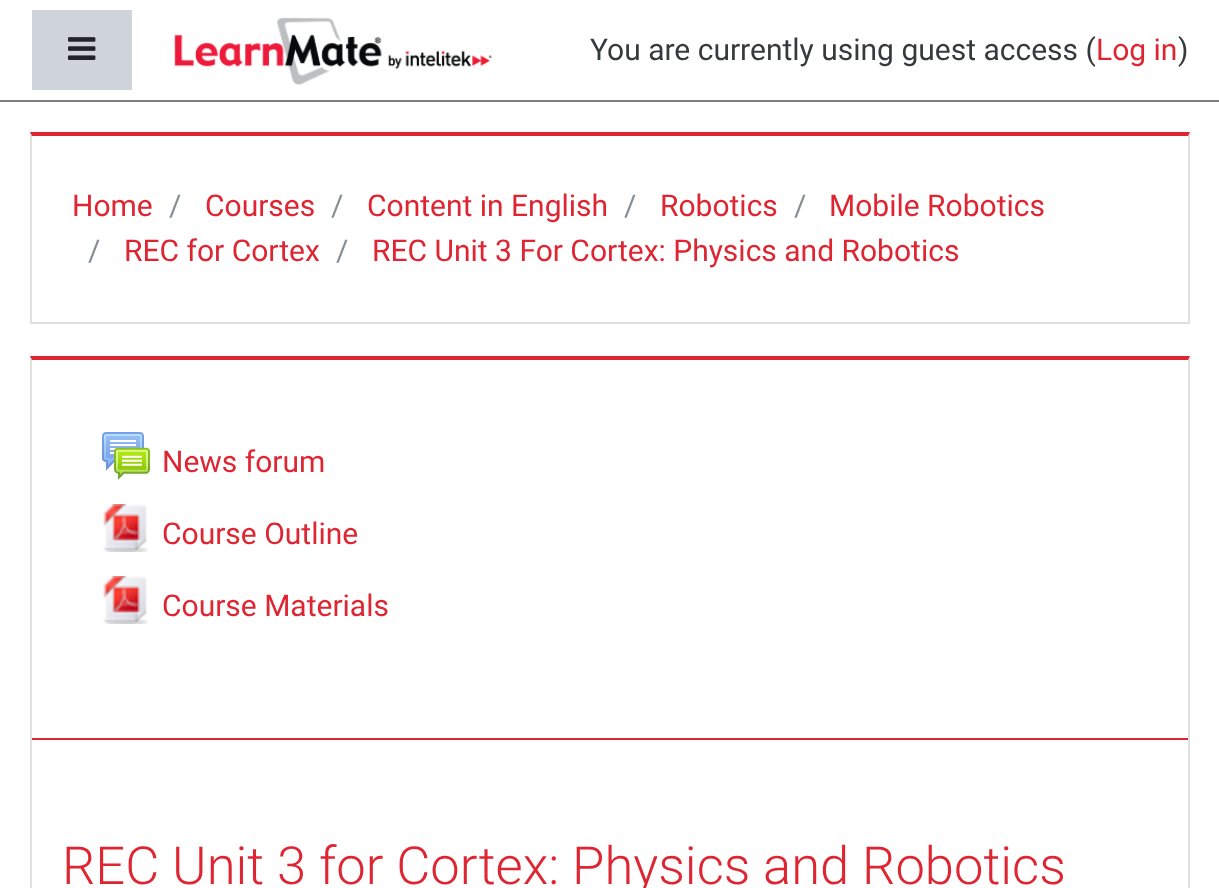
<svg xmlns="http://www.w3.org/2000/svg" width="1219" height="888">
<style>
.a{font:30px Roboto;fill:#373a3c}
.b{font:30px Roboto;fill:#df2531}
.c{font:30px Roboto;fill:#868e96}
.d{font:300 52.5px Roboto;fill:#df2531}
</style>
<rect width="100%" height="100%" fill="#fff"/>
<path fill="#807f7f" d="M0 100h1219v2H0z"/>
<path fill="#ced4da" d="M32 10h100v80H32z"/>
<image href="1.png" x="68" y="37" width="28" height="23"/>
<image href="2.png" x="174" y="17" width="318" height="68"/>
<path fill="#df2531" d="M30 132h1160l-2 4h-1156z"/>
<path fill="#0000001f" d="M1190 132v192l-2-2v-186z"/>
<path fill="#0000001f" d="M1190 324h-1160l2-2h1156z"/>
<path fill="#0000001f" d="M30 324v-192l2 4v186z"/>
<path fill="#df2531" d="M30 356h1160l-2 4h-1156z"/>
<path fill="#0000001f" d="M1190 356v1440l-2-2v-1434z"/>
<path fill="#0000001f" d="M30 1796v-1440l2 4v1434z"/>
<path fill="#df2531" d="M32 738h1156v2H32z"/>
<image href="3.png" x="102" y="432" width="48" height="48"/>
<image href="4.png" x="103" y="504" width="45" height="48"/>
<image href="4.png" x="103" y="576" width="45" height="48"/>
<text class="a" x="590" y="60">You are currently using guest access (</text>
<text class="b" x="1096" y="60">Log in</text>
<text class="a" x="1178" y="60">)</text>
<text class="b" x="72" y="216">Home</text>
<text class="c" x="169" y="216">/</text>
<text class="b" x="205" y="216">Courses</text>
<text class="c" x="331" y="216">/</text>
<text class="b" x="367" y="216">Content in English</text>
<text class="c" x="624" y="216">/</text>
<text class="b" x="660" y="216">Robotics</text>
<text class="c" x="794" y="216">/</text>
<text class="b" x="829" y="216">Mobile Robotics</text>
<text class="c" x="88" y="261">/</text>
<text class="b" x="124" y="261">REC for Cortex</text>
<text class="c" x="336" y="261">/</text>
<text class="b" x="372" y="261">REC Unit 3 For Cortex: Physics and Robotics</text>
<text class="b" x="162" y="472">News forum</text>
<text class="b" x="162" y="544">Course Outline</text>
<text class="b" x="162" y="616">Course Materials</text>
<text class="d" x="62" y="884">REC Unit 3 for Cortex: Physics and Robotics</text>
</svg>
